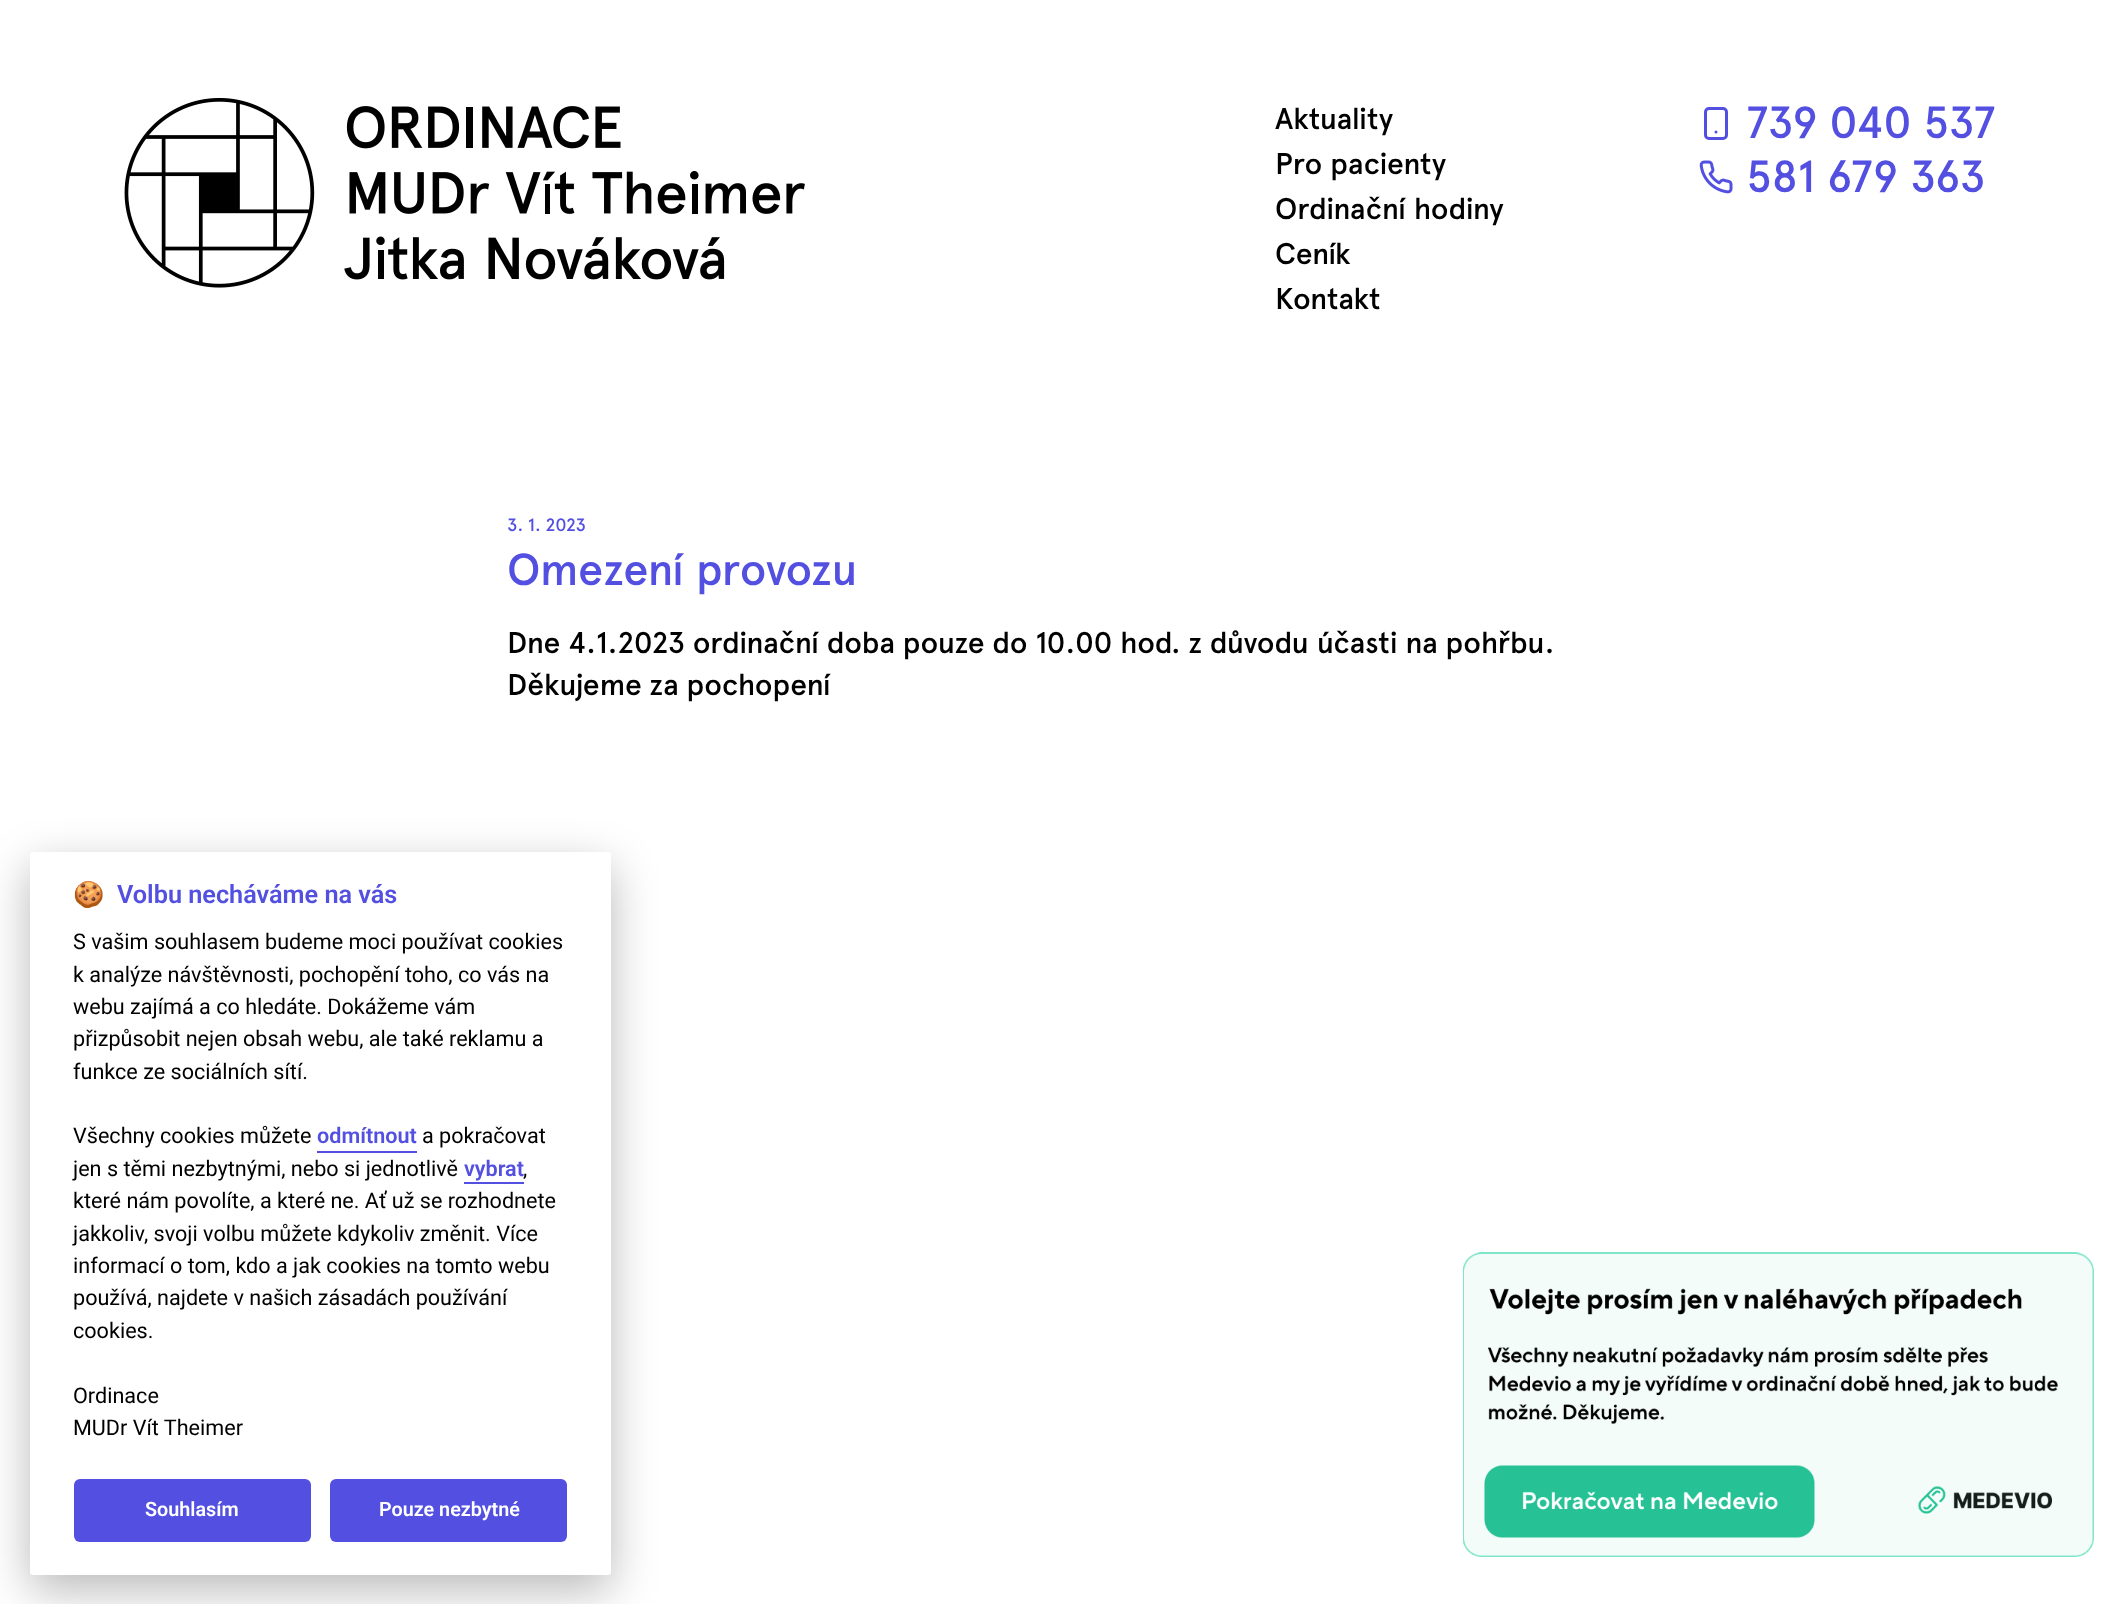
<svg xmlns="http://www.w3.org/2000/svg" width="2117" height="1604">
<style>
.a{font:500 30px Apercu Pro;fill:#000}
.b{font:500 45px Apercu Pro;fill:#524fe1}
.c{font:500 18px Apercu Pro;fill:#524fe1}
.d{font:bold 25.25px Noto Color Emoji;fill:#524fe1}
.e{font:600 25.25px Roboto;fill:#524fe1}
.f{font:21.6px Roboto;fill:#000}
.g{font:600 21.6px Roboto;fill:#524fe1}
.h{font:600 19.75px Roboto;fill:#fff}
</style>
<rect width="100%" height="100%" fill="#fff"/>
<image href="1.png" x="124" y="98" width="681" height="190"/>
<rect fill="none" stroke="#524fe1" stroke-width="3" x="1705.5" y="108.5" width="21" height="30" rx="3.5"/>
<path fill="none" stroke="#524fe1" stroke-width="3" stroke-linecap="round" stroke-linejoin="round" d="M1716 132h0"/>
<image href="2.png" x="1699" y="160" width="34" height="34"/>
<image href="3.png" x="1463" y="1252" width="631" height="305"/>
<rect fill="#02020347" filter="blur(22.5px)" x="30" y="867" width="581" height="723" rx="3"/>
<rect fill="#fff" x="30" y="852" width="581" height="723" rx="3"/>
<path fill="#524fe1" d="M317 1151h100v2H317z"/>
<path fill="#524fe1" d="M464 1182h60v2H464z"/>
<rect fill="#524fe1" x="74" y="1479" width="237" height="63" rx="6"/>
<rect fill="#524fe1" x="330" y="1479" width="237" height="63" rx="6"/>
<text class="a" x="1275" y="129">Aktuality</text>
<text class="a" x="1275" y="174">Pro pacienty</text>
<text class="a" x="1275" y="219">Ordinační hodiny</text>
<text class="a" x="1275" y="264">Ceník</text>
<text class="a" x="1275" y="309">Kontakt</text>
<text class="b" x="1746" y="138">739 040 537</text>
<text class="b" x="1746" y="192">581 679 363</text>
<text class="c" x="507" y="531">3. 1. 2023</text>
<text class="b" x="507" y="585">Omezení provozu</text>
<text class="a" x="507" y="653">Dne 4.1.2023 ordinační doba pouze do 10.00 hod. z důvodu účasti na pohřbu.</text>
<text class="a" x="507" y="695">Děkujeme za pochopení</text>
<text class="d" x="73" y="903">🍪</text>
<text class="e" x="117" y="903">Volbu necháváme na vás</text>
<text class="f" x="73" y="949">S vašim souhlasem budeme moci používat cookies</text>
<text class="f" x="73" y="982">k analýze návštěvnosti, pochopění toho, co vás na</text>
<text class="f" x="73" y="1014">webu zajímá a co hledáte. Dokážeme vám</text>
<text class="f" x="73" y="1046">přizpůsobit nejen obsah webu, ale také reklamu a</text>
<text class="f" x="73" y="1079">funkce ze sociálních sítí.</text>
<text class="f" x="73" y="1143">Všechny cookies můžete</text>
<text class="g" x="317" y="1143">odmítnout</text>
<text class="f" x="422" y="1143">a pokračovat</text>
<text class="f" x="73" y="1176">jen s těmi nezbytnými, nebo si jednotlivě</text>
<text class="g" x="464" y="1176">vybrat</text>
<text class="f" x="523" y="1176">,</text>
<text class="f" x="73" y="1208">které nám povolíte, a které ne. Ať už se rozhodnete</text>
<text class="f" x="73" y="1241">jakkoliv, svoji volbu můžete kdykoliv změnit. Více</text>
<text class="f" x="73" y="1273">informací o tom, kdo a jak cookies na tomto webu</text>
<text class="f" x="73" y="1305">používá, najdete v našich zásadách používání</text>
<text class="f" x="73" y="1338">cookies.</text>
<text class="f" x="73" y="1403">Ordinace</text>
<text class="f" x="73" y="1435">MUDr Vít Theimer</text>
<text class="h" x="145" y="1516">Souhlasím</text>
<text class="h" x="379" y="1516">Pouze nezbytné</text>
</svg>
